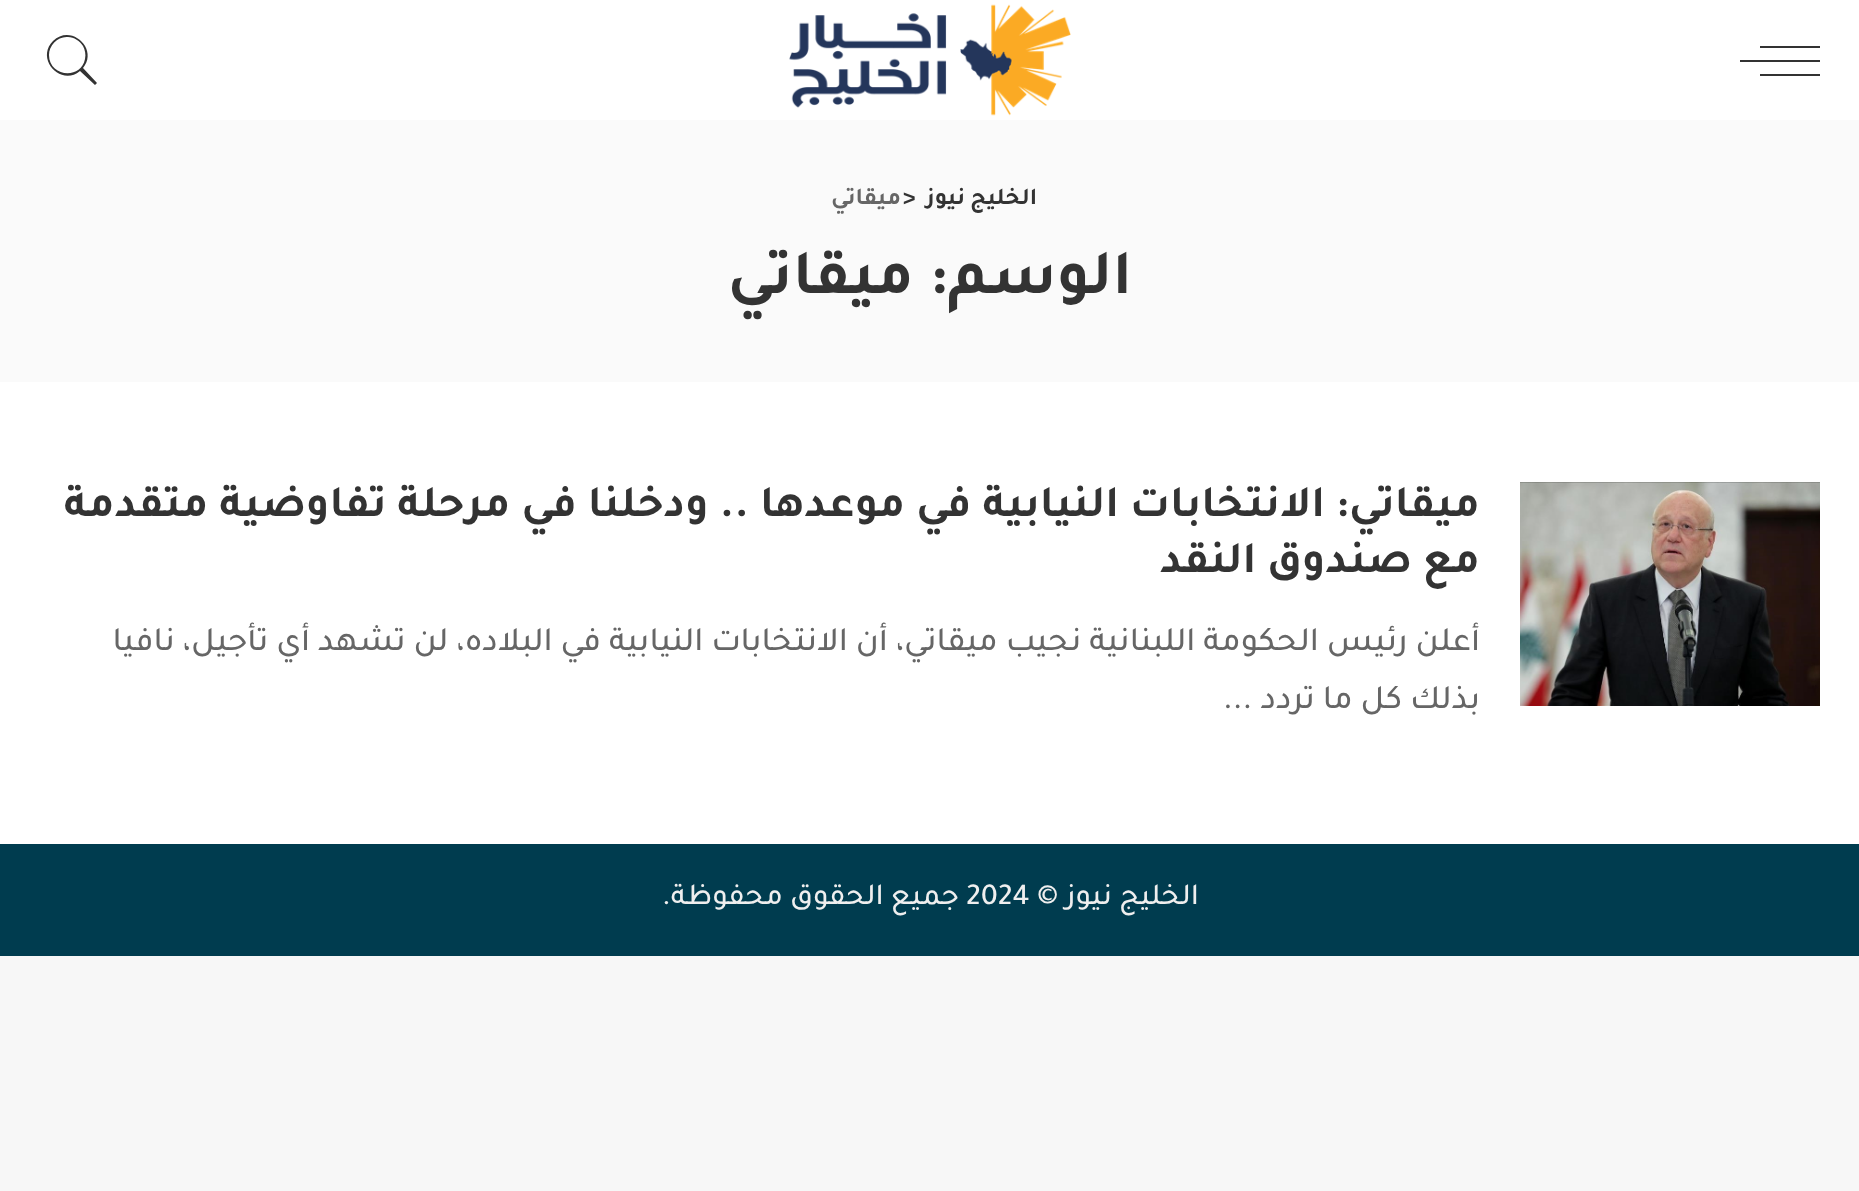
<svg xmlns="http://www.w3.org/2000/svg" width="1859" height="1191">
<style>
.a{font:bold 24px Tajawal;letter-spacing:0.5px;direction:rtl;fill:#333}
.b{font:bold 24px Tajawal;letter-spacing:0.5px;fill:#333}
.c{font:bold 24px Tajawal;letter-spacing:0.5px;direction:rtl;fill:#666}
.d{font:bold 64px Tajawal;direction:rtl;fill:#333}
.e{font:bold 45px Tajawal;direction:rtl;fill:#333}
.f{font:500 34px Tajawal;direction:rtl;fill:#666}
.g{font:500 34px Tajawal;fill:#666}
.h{font:500 30.5px Tajawal;direction:rtl;fill:#efefef}
.i{font:500 30.5px Tajawal;fill:#efefef}
</style>
<rect width="100%" height="100%" fill="#f7f7f7"/>
<path fill="#fff" d="M0 0h1859v844H0z"/>
<path fill="#333" d="M1740 60h80v2H1740z"/>
<path fill="#333" d="M1760 46h60v2H1760z"/>
<path fill="#333" d="M1760 74h60v2H1760z"/>
<image href="1.png" x="789" y="4" width="282" height="112"/>
<path fill="#333" d="M97 83l-14-15c16-19-12-45-30-27c-18 18 8 46 27 30l15 14zm-48-28c0-10 9-19 19-18c6 0 12 4 15 9c2 4 3 8 2 13c-4 21-36 18-36-4z"/>
<path fill="#fafafa" d="M0 120h1859v262H0z"/>
<image href="2.png" x="1520" y="482" width="300" height="224"/>
<path fill="#003c4f" d="M0 844h1859v112H0z"/>
<text class="a" x="1037" y="204" word-spacing="-1">الخليج نيوز</text>
<text class="b" x="903" y="204">&gt;</text>
<text class="c" x="901" y="204">ميقاتي</text>
<text class="d" x="1132" y="293">الوسم:</text>
<text class="d" x="914" y="293">ميقاتي</text>
<text class="e" x="1480" y="516">ميقاتي: الانتخابات النيابية في موعدها .. ودخلنا في مرحلة تفاوضية متقدمة</text>
<text class="e" x="1480" y="572">مع صندوق النقد</text>
<text class="f" x="1480" y="650">أعلن رئيس الحكومة اللبنانية نجيب ميقاتي، أن الانتخابات النيابية في البلاده، لن تشهد أي تأجيل، نافيا</text>
<text class="f" x="1480" y="708">بذلك كل ما تردد</text>
<text class="g" x="1223" y="708">...</text>
<text class="h" x="1199" y="904">الخليج نيوز ©</text>
<text class="i" x="966" y="904">2024</text>
<text class="h" x="959" y="904">جميع الحقوق محفوظة.</text>
</svg>
